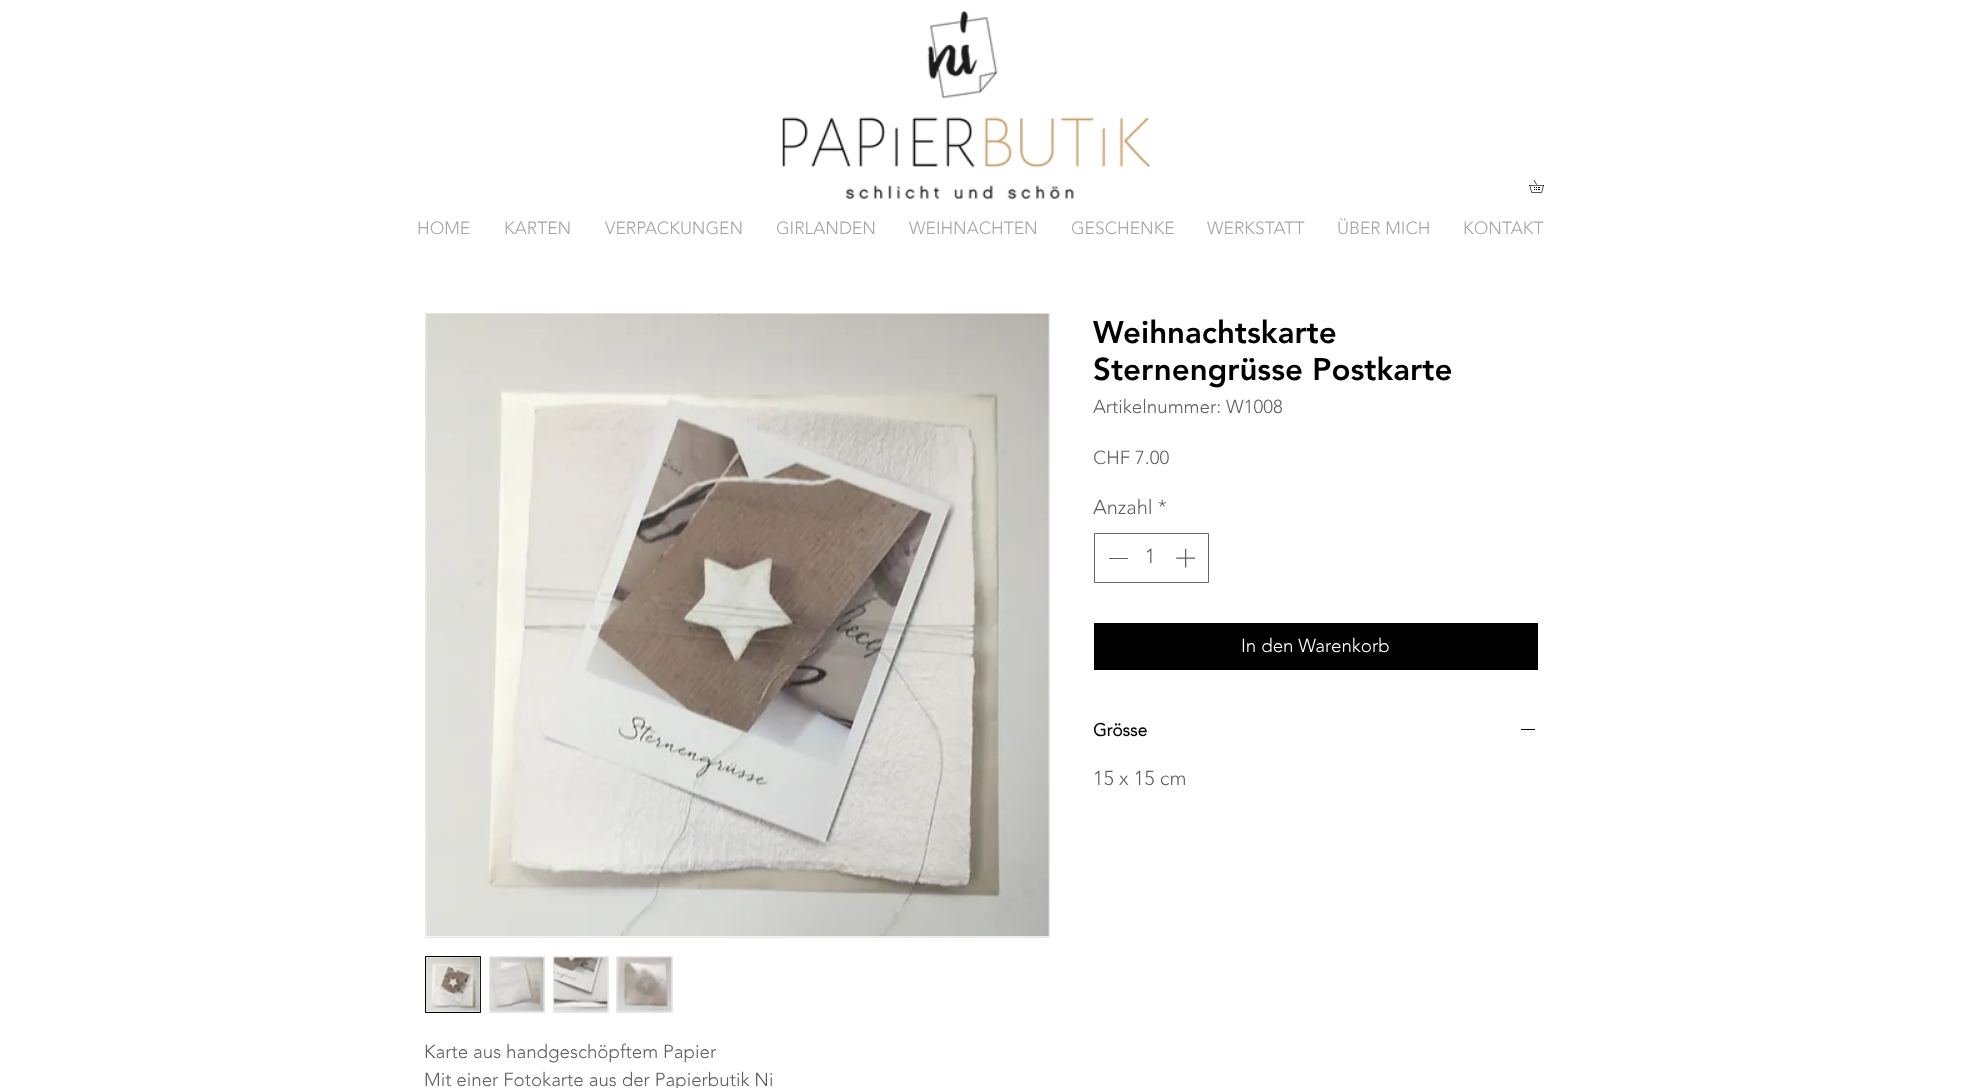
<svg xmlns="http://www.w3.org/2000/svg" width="1961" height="1088">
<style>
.a{font:300 17.5px 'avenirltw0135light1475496';fill:#a6a6a6}
.b{font:900 31.25px 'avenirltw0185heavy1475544';fill:#000}
.c{font:300 18.75px 'avenirltw0135light1475496';fill:#616060}
.d{font:300 20px 'avenirltw0135light1475496';fill:#616060}
.e{font:300 18.75px 'avenirltw0135light1475496';fill:#fff}
.f{font:bold 17.5px 'avenirltw0135light1475496';fill:#000}
</style>
<rect width="100%" height="100%" fill="#fff"/>
<image href="1.png" x="782" y="11" width="368" height="188"/>
<image href="2.png" x="1529" y="180" width="15" height="13"/>
<path fill="none" stroke="#666" d="M1094.5 533.5h114v49H1094.5z"/>
<path fill="#616060" d="M1109 558h19v1H1109z"/>
<image href="3.png" x="1176" y="548" width="19" height="20"/>
<path fill="#000" d="M1094 623h444v47H1094z"/>
<path fill="#000" d="M1521 729h14v1H1521z"/>
<path fill="none" stroke="#e8e6e6" d="M425.5 313.5h624v624H425.5z"/>
<image href="4.png" x="426" y="313" width="623" height="624"/>
<path fill="#e8e6e6" stroke="#000" d="M425.5 956.5h55v56H425.5z"/>
<image href="5.png" x="426" y="957" width="55" height="55"/>
<path fill="#e8e6e6" d="M489 956h56v57H489z"/>
<image href="6.png" x="490" y="957" width="55" height="55"/>
<path fill="#e8e6e6" d="M553 956h56v57H553z"/>
<image href="7.png" x="553" y="957" width="55" height="55"/>
<path fill="#e8e6e6" d="M616 956h57v57H616z"/>
<image href="8.png" x="617" y="957" width="55" height="55"/>
<text class="a" x="417" y="234">HOME</text>
<text class="a" x="504" y="234">KARTEN</text>
<text class="a" x="605" y="234">VERPACKUNGEN</text>
<text class="a" x="776" y="234">GIRLANDEN</text>
<text class="a" x="909" y="234">WEIHNACHTEN</text>
<text class="a" x="1071" y="234">GESCHENKE</text>
<text class="a" x="1207" y="234">WERKSTATT</text>
<text class="a" x="1337" y="234">ÜBER MICH</text>
<text class="a" x="1463" y="234">KONTAKT</text>
<text class="b" x="1093" y="343">Weihnachtskarte</text>
<text class="b" x="1093" y="380">Sternengrüsse Postkarte</text>
<text class="c" x="1093" y="413">Artikelnummer: W1008</text>
<text class="c" x="1093" y="464">CHF 7.00</text>
<text class="d" x="1093" y="514">Anzahl *</text>
<text class="d" x="1145" y="563">1</text>
<text class="e" x="1241" y="652">In den Warenkorb</text>
<text class="f" x="1093" y="736">Grösse</text>
<text class="d" x="1093" y="785">15 x 15 cm</text>
<text class="c" x="424" y="1058">Karte aus handgeschöpftem Papier</text>
<text class="c" x="424" y="1086">Mit einer Fotokarte aus der Papierbutik Ni</text>
</svg>
